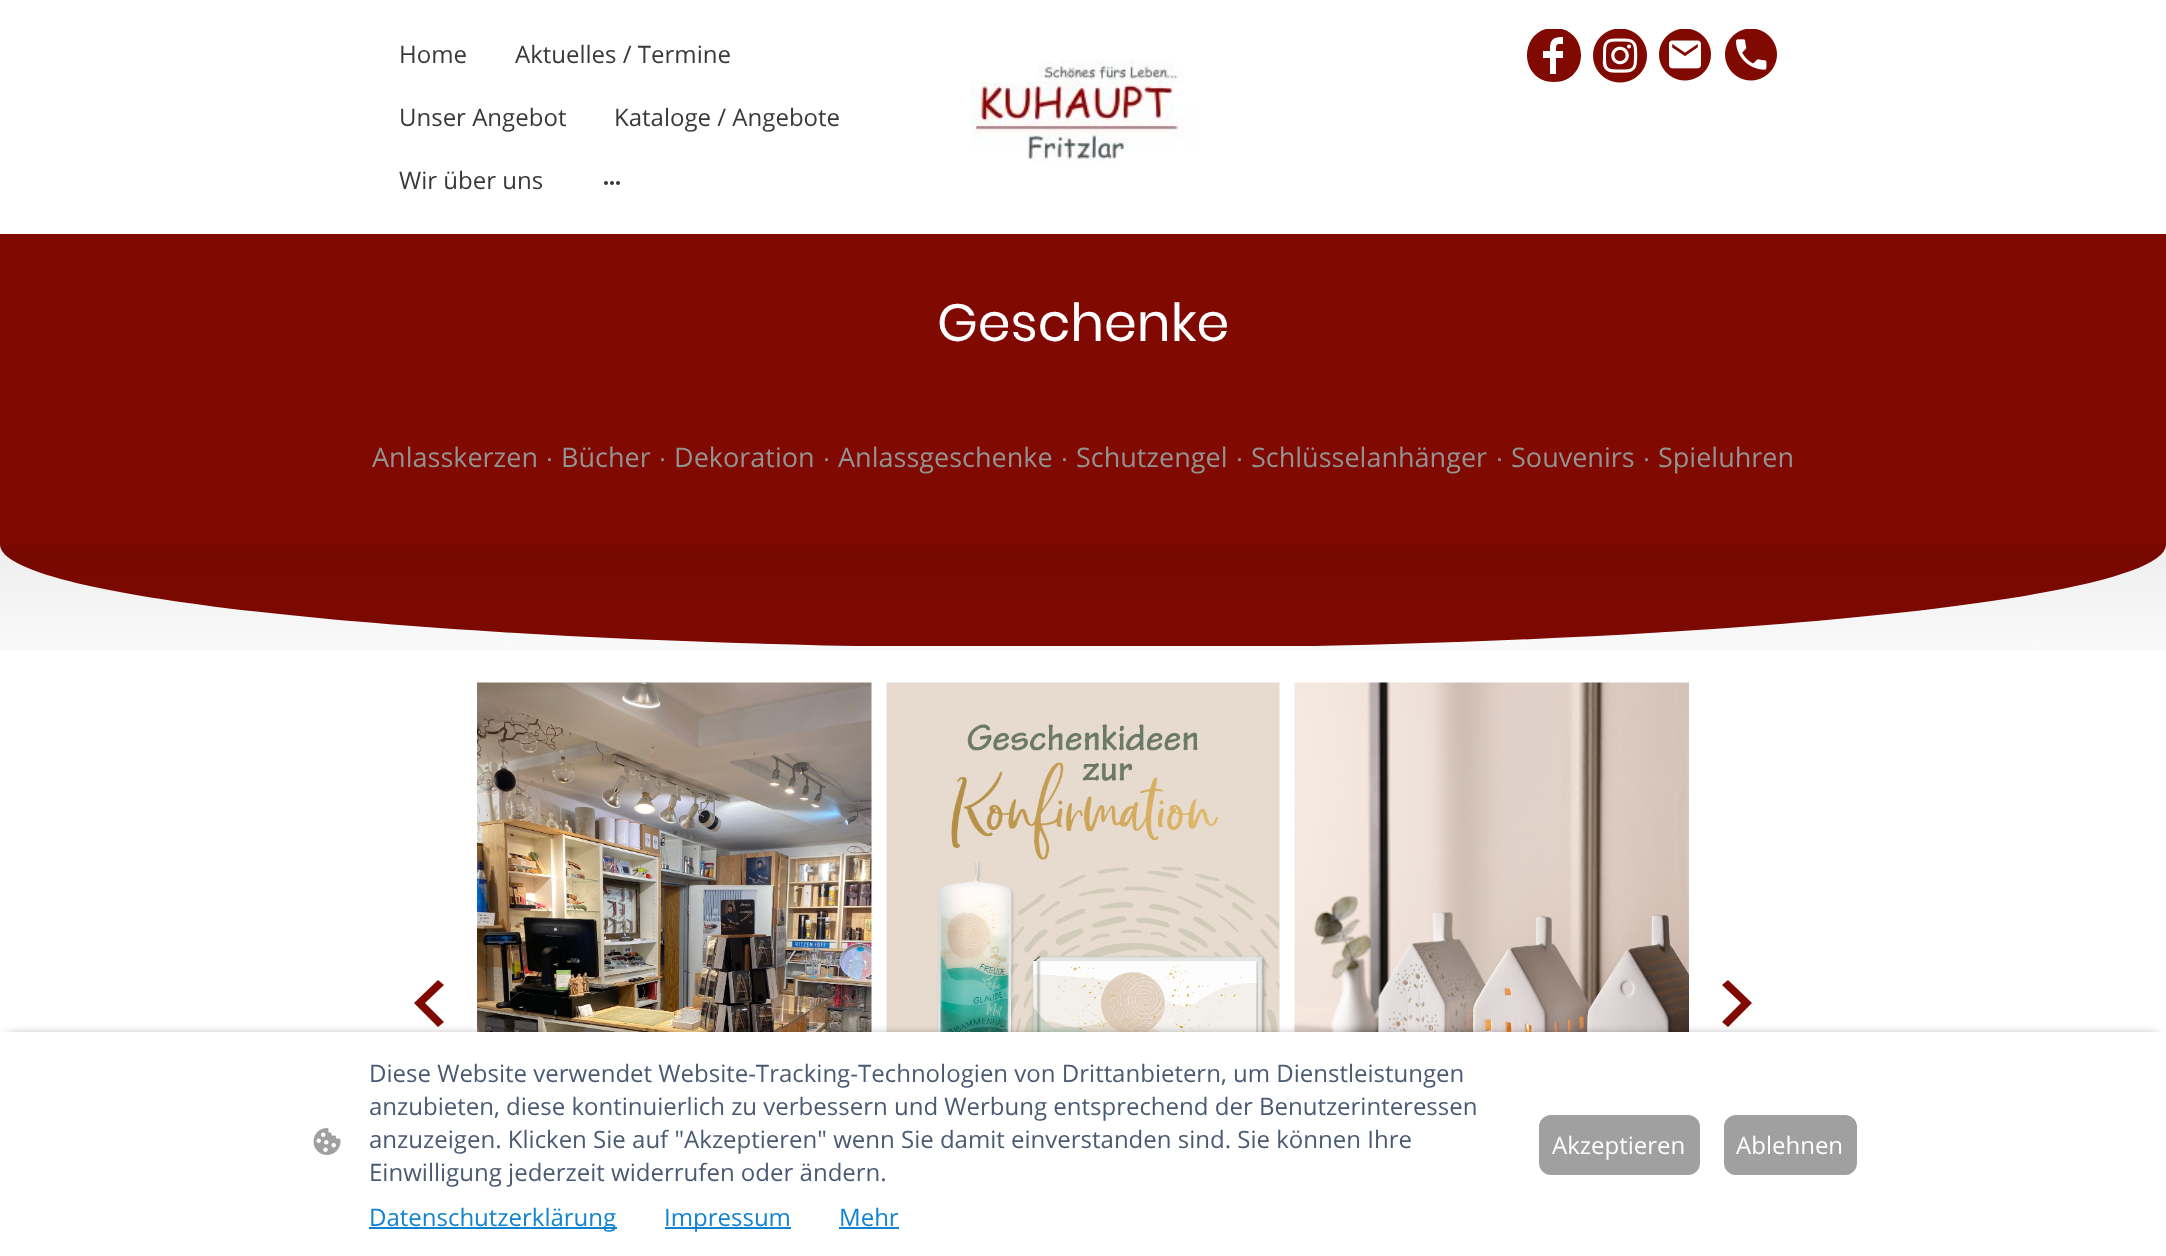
<svg xmlns="http://www.w3.org/2000/svg" width="2166" height="1256">
<style>
.a{font:24px Open Sans;fill:#393939}
.b{font:52.5px Poppins;fill:#fff}
.c{font:27px Open Sans;fill:#939393}
.d{font:27px Liberation Sans;fill:#939393}
.e{font:24px Open Sans;fill:#4a5a73}
.f{font:24px Open Sans;fill:#1183d1}
.g{font:24px Open Sans;fill:#fff}
</style>
<defs>
<clipPath id="clip1"><path d="M1527 29h54v54H1527z"/></clipPath>
<linearGradient id="g1" gradientUnits="userSpaceOnUse" x1="1083" y1="544" x2="1083" y2="698"><stop offset="0" stop-color="#000" stop-opacity="0.07"/><stop offset="1" stop-color="#000" stop-opacity="0"/></linearGradient>
</defs>
<rect width="100%" height="100%" fill="#fff"/>
<image href="1.png" x="604" y="181" width="16" height="4"/>
<image href="2.png" x="970" y="60" width="225" height="101"/>
<g clip-path="url(#clip1)">
<path fill="#800902" d="M1554 28c-36 0-36 54 0 54c36 0 36-54 0-54zm9 16c-7 0-7 0-7 7h7v7h-7v16h-6v-16h-7v-7h7c0-11 2-14 13-14z"/>
</g>
<image href="3.png" x="1593" y="29" width="54" height="54"/>
<image href="4.png" x="1659" y="29" width="52" height="52"/>
<image href="5.png" x="1725" y="29" width="52" height="52"/>
<path fill="#800902" d="M0 234h2166v412H0z"/>
<image href="6.png" x="0" y="545" width="2166" height="103"/>
<path fill="url(#g1)" d="M0 545h2166v106H0z"/>
<image href="7.png" x="477" y="682" width="395" height="350"/>
<image href="8.png" x="886" y="682" width="394" height="350"/>
<image href="9.png" x="1294" y="682" width="395" height="350"/>
<path fill="#800902" d="M438 980l6 5l-19 18l19 19l-6 5l-24-24z"/>
<path fill="#800902" d="M1728 980l-6 5l19 18l-19 19l6 5l24-24z"/>
<path fill="#000000a1" filter="blur(6px)" d="M9 1037h2148v207H9z"/>
<path fill="#fff" d="M0 1032h2166v224H0z"/>
<image href="10.png" x="313" y="1128" width="28" height="27"/>
<path fill="#1183d1" d="M369 1227h248v2H369z"/>
<path fill="#1183d1" d="M665 1227h126v2H665z"/>
<path fill="#1183d1" d="M839 1227h60v2H839z"/>
<rect fill="#a0a0a0" stroke="#a0a0a0" stroke-width="2" x="1540" y="1116" width="159" height="58" rx="11"/>
<rect fill="#a0a0a0" stroke="#a0a0a0" stroke-width="2" x="1725" y="1116" width="131" height="58" rx="11"/>
<text class="a" x="399" y="63">Home</text>
<text class="a" x="515" y="63">Aktuelles / Termine</text>
<text class="a" x="399" y="126">Unser Angebot</text>
<text class="a" x="614" y="126">Kataloge / Angebote</text>
<text class="a" x="399" y="189">Wir über uns</text>
<text class="b" x="937" y="341">Geschenke</text>
<text class="c" x="372" y="467">Anlasskerzen</text>
<text class="d" x="545" y="467">·</text>
<text class="c" x="561" y="467">Bücher</text>
<text class="d" x="658" y="467">·</text>
<text class="c" x="674" y="467">Dekoration</text>
<text class="d" x="822" y="467">·</text>
<text class="c" x="838" y="467">Anlassgeschenke</text>
<text class="d" x="1060" y="467">·</text>
<text class="c" x="1076" y="467">Schutzengel</text>
<text class="d" x="1235" y="467">·</text>
<text class="c" x="1251" y="467">Schlüsselanhänger</text>
<text class="d" x="1495" y="467">·</text>
<text class="c" x="1511" y="467">Souvenirs</text>
<text class="d" x="1642" y="467">·</text>
<text class="c" x="1658" y="467">Spieluhren</text>
<text class="e" x="369" y="1082">Diese Website verwendet Website-Tracking-Technologien von Drittanbietern, um Dienstleistungen</text>
<text class="e" x="369" y="1115">anzubieten, diese kontinuierlich zu verbessern und Werbung entsprechend der Benutzerinteressen</text>
<text class="e" x="369" y="1148">anzuzeigen. Klicken Sie auf "Akzeptieren" wenn Sie damit einverstanden sind. Sie können Ihre</text>
<text class="e" x="369" y="1181">Einwilligung jederzeit widerrufen oder ändern.</text>
<text class="f" x="369" y="1226">Datenschutzerklärung</text>
<text class="f" x="664" y="1226">Impressum</text>
<text class="f" x="839" y="1226">Mehr</text>
<text class="g" x="1552" y="1154">Akzeptieren</text>
<text class="g" x="1736" y="1154">Ablehnen</text>
</svg>
